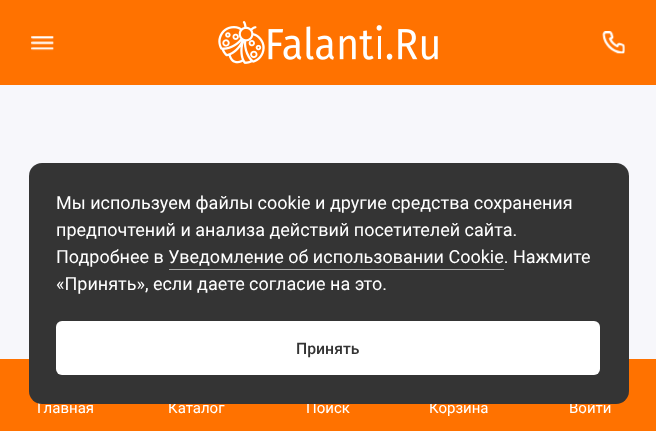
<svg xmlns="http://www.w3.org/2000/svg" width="656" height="431">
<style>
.a{font:15px Roboto;fill:#fff}
.b{font:500 15.75px Roboto;fill:#343434}
.c{font:18px Roboto;fill:#fff}
</style>
<rect width="100%" height="100%" fill="#f7f7fb"/>
<path fill="#ff7200" d="M0 0h656v85H0z"/>
<image href="1.png" x="31" y="36" width="23" height="15"/>
<image href="2.png" x="218" y="21" width="220" height="43"/>
<image href="3.png" x="602" y="31" width="23" height="23"/>
<path fill="#ff7200" d="M0 359h656v72H0z"/>
<text class="a" x="37" y="413">Главная</text>
<text class="a" x="168" y="413">Каталог</text>
<text class="a" x="306" y="413">Поиск</text>
<text class="a" x="429" y="413">Корзина</text>
<text class="a" x="569" y="413">Войти</text>
<rect fill="#343434" x="29" y="163" width="600" height="241" rx="13"/>
<rect fill="#fff" x="56" y="321" width="544" height="54" rx="6"/>
<text class="b" x="296" y="354">Принять</text>
<text class="c" x="56" y="290">«Принять», если даете согласие на это.</text>
<path fill="#aeaeae" d="M169 269h335v1H169z"/>
<text class="c" x="56" y="263">Подробнее в Уведомление об использовании Cookie. Нажмите</text>
<text class="c" x="56" y="236">предпочтений и анализа действий посетителей сайта.</text>
<text class="c" x="56" y="209">Мы используем файлы cookie и другие средства сохранения</text>
</svg>
